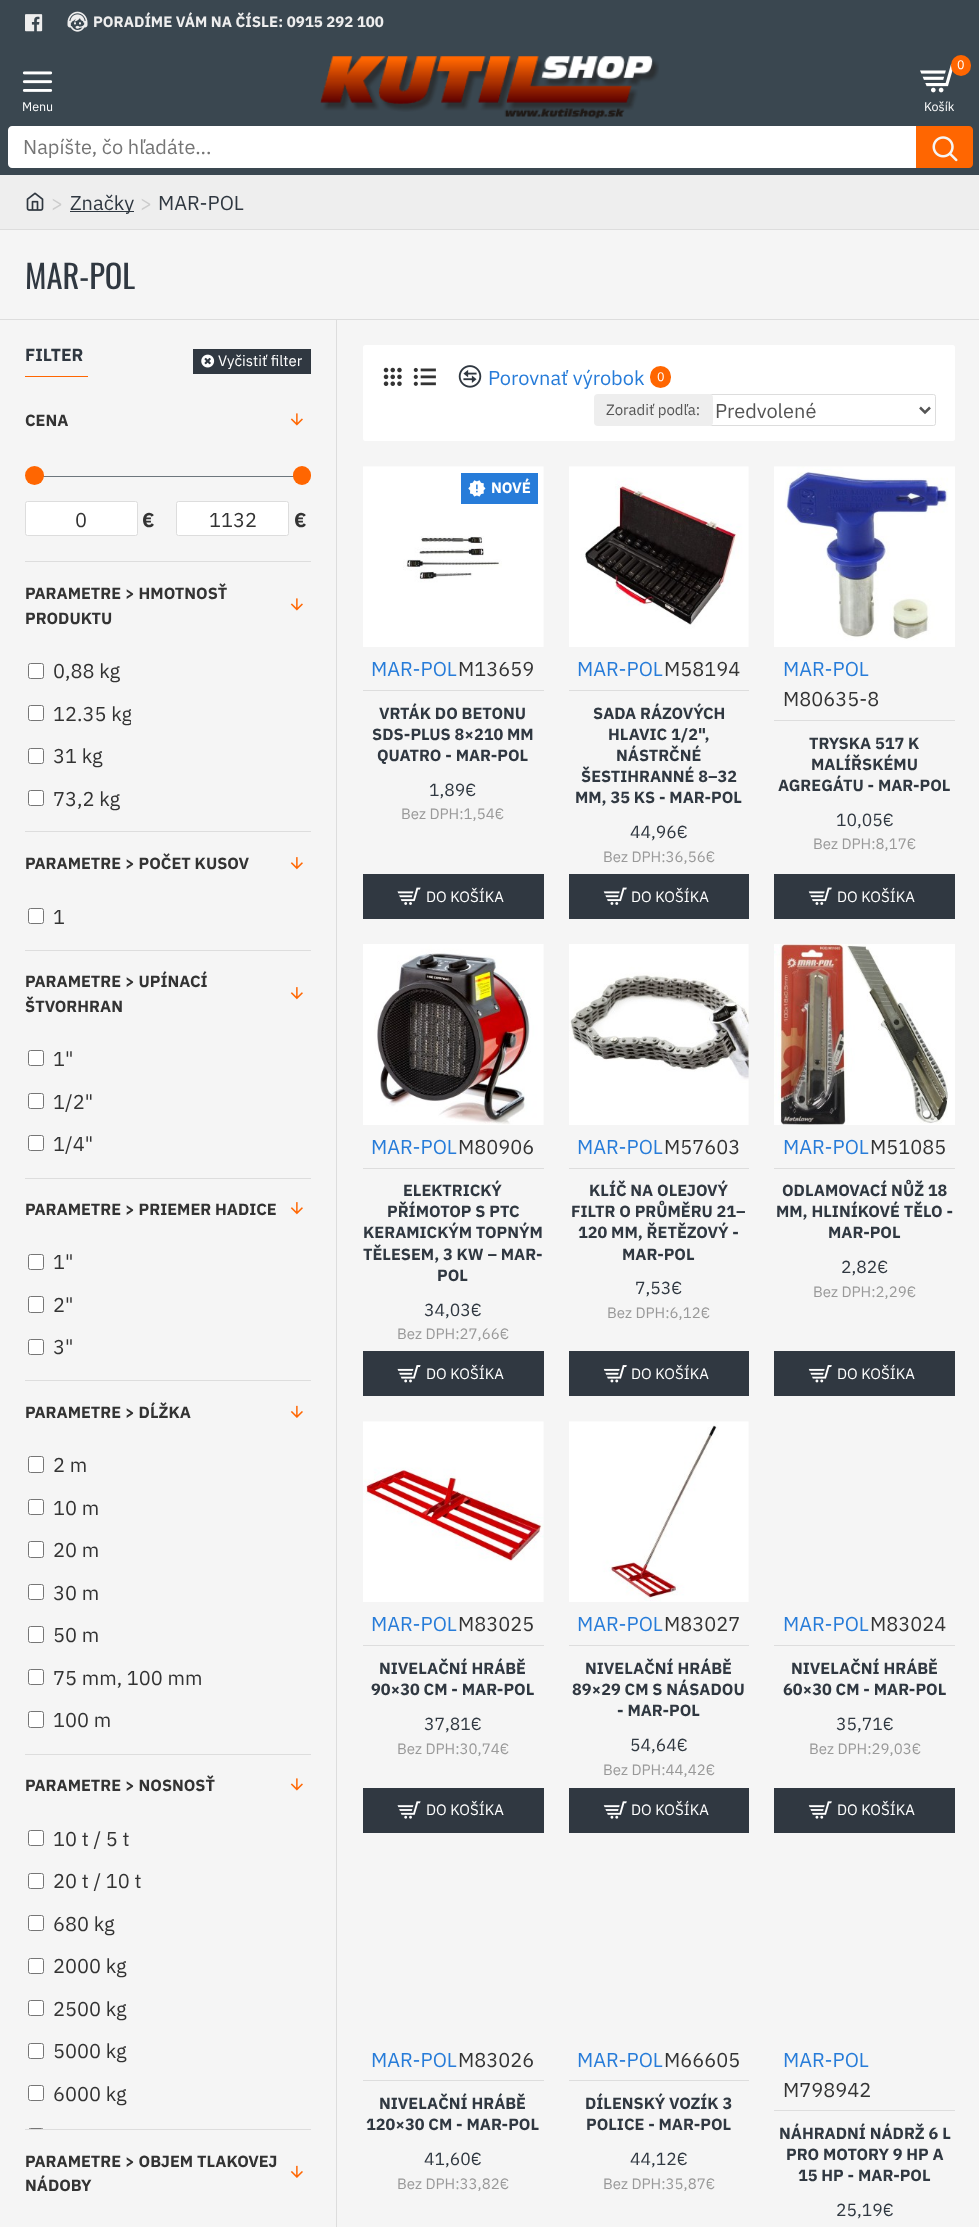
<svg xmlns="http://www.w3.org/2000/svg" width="979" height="2227">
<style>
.a{font:bold 15px IBM Plex Sans;fill:#eee}
.b{font:12.5px IBM Plex Sans;fill:#fff}
.c{font:20px IBM Plex Sans;fill:#757575}
.d{font:20px IBM Plex Sans;fill:#ccc}
.e{font:20px IBM Plex Sans;fill:#303841}
.f{font:32.5px Oswald;fill:#303841}
.g{font:bold 17.5px IBM Plex Sans;fill:#303841}
.h{font:15px IBM Plex Sans;fill:#fff}
.i{font:bold 16.25px IBM Plex Sans;fill:#333}
.j{font:20px IBM Plex Sans;fill:#333}
.k{font:bold 20px IBM Plex Sans;fill:#333}
.l{font:20px IBM Plex Sans;fill:#277cd9}
.m{font:15px IBM Plex Sans;fill:#555}
.n{font:20px IBM Plex Sans;fill:#555}
.o{font:bold 15px IBM Plex Sans;fill:#fff}
.p{font:bold 16.25px IBM Plex Sans;fill:#303841}
.q{font:17.5px IBM Plex Sans;fill:#303841}
.r{font:15px IBM Plex Sans;fill:#999}
</style>
<defs>
<clipPath id="clip1"><path d="M25 1816h286v313H25z"/></clipPath>
<clipPath id="clip2"><path d="M53 698h78v30H53z"/></clipPath>
</defs>
<rect width="100%" height="100%" fill="#f5f5f5"/>
<path fill="#3a4750" d="M0 0h979v175H0z"/>
<image href="1.png" x="25" y="14" width="18" height="18"/>
<image href="2.png" x="67" y="11" width="21" height="21"/>
<image href="3.png" x="22" y="71" width="31" height="21"/>
<image href="4.png" x="320" y="56" width="339" height="63"/>
<image href="5.png" x="920" y="64" width="33" height="29"/>
<rect fill="#ff6601" x="951" y="55" width="20" height="21" rx="10"/>
<path fill="#fff" d="M12 126h904v42h-904c-2 0-4-2-4-4v-34c0-2 2-4 4-4z"/>
<path fill="#ff6601" d="M916 126h53c2 0 4 2 4 4v34c0 2-2 4-4 4h-53z"/>
<image href="6.png" x="932" y="136" width="26" height="26"/>
<path fill="#eee" d="M0 175h979v54H0z"/>
<path fill="#ddd" d="M0 229h979v1H0z"/>
<image href="7.png" x="26" y="192" width="18" height="19"/>
<path fill="#303841" d="M70 211h64v1H70z"/>
<path fill="#ddd" d="M0 319h979v1H0z"/>
<path fill="#ddd" d="M336 320h1v1907H336z"/>
<path fill="#303841" d="M193 349h118v25H193z"/>
<image href="8.png" x="201" y="354" width="14" height="14"/>
<path fill="#ff6601" d="M25 376h63v1H25z"/>
<image href="9.png" x="290" y="413" width="13" height="13"/>
<path fill="#6d767d" d="M41 476h260c4 1-5 1-5 1h-255h-6l2-1z"/>
<circle fill="#ff6601" cx="34.5" cy="475.5" r="9.5"/>
<rect fill="#ff6601" x="293" y="466" width="18" height="19" rx="9"/>
<rect fill="#fff" stroke="#ddd" x="25.5" y="501.5" width="112" height="34" rx="2"/>
<rect fill="#fff" stroke="#ddd" x="176.5" y="501.5" width="112" height="34" rx="2"/>
<path fill="#ddd" d="M25 561h286v1H25z"/>
<image href="9.png" x="290" y="598" width="13" height="13"/>
<rect fill="#fff" stroke="#767676" x="28.5" y="663.5" width="15" height="15" rx="2"/>
<rect fill="#fff" stroke="#767676" x="28.5" y="705.5" width="15" height="15" rx="2"/>
<rect fill="#fff" stroke="#767676" x="28.5" y="748.5" width="15" height="15" rx="2"/>
<rect fill="#fff" stroke="#767676" x="28.5" y="790.5" width="15" height="15" rx="2"/>
<path fill="#ddd" d="M25 831h286v1H25z"/>
<image href="10.png" x="290" y="857" width="13" height="13"/>
<rect fill="#fff" stroke="#767676" x="28.5" y="908.5" width="15" height="15" rx="2"/>
<path fill="#ddd" d="M25 950h286v1H25z"/>
<image href="10.png" x="290" y="987" width="13" height="13"/>
<rect fill="#fff" stroke="#767676" x="28.5" y="1050.5" width="15" height="15" rx="2"/>
<rect fill="#fff" stroke="#767676" x="28.5" y="1093.5" width="15" height="15" rx="2"/>
<rect fill="#fff" stroke="#767676" x="28.5" y="1135.5" width="15" height="15" rx="2"/>
<path fill="#ddd" d="M25 1178h286v1H25z"/>
<image href="10.png" x="290" y="1202" width="13" height="13"/>
<rect fill="#fff" stroke="#767676" x="28.5" y="1254.5" width="15" height="15" rx="2"/>
<rect fill="#fff" stroke="#767676" x="28.5" y="1296.5" width="15" height="16" rx="2"/>
<rect fill="#fff" stroke="#767676" x="28.5" y="1339.5" width="15" height="15" rx="2"/>
<path fill="#ddd" d="M25 1380h286v1H25z"/>
<image href="11.png" x="290" y="1405" width="13" height="13"/>
<rect fill="#fff" stroke="#767676" x="28.5" y="1456.5" width="15" height="16" rx="2"/>
<rect fill="#fff" stroke="#767676" x="28.5" y="1499.5" width="15" height="15" rx="2"/>
<rect fill="#fff" stroke="#767676" x="28.5" y="1541.5" width="15" height="16" rx="2"/>
<rect fill="#fff" stroke="#767676" x="28.5" y="1584.5" width="15" height="15" rx="2"/>
<rect fill="#fff" stroke="#767676" x="28.5" y="1626.5" width="15" height="16" rx="2"/>
<rect fill="#fff" stroke="#767676" x="28.5" y="1669.5" width="15" height="15" rx="2"/>
<rect fill="#fff" stroke="#767676" x="28.5" y="1711.5" width="15" height="16" rx="2"/>
<path fill="#ddd" d="M25 1754h286v1H25z"/>
<image href="9.png" x="290" y="1778" width="13" height="13"/>
<rect fill="#fff" stroke="#767676" x="28.5" y="1830.5" width="15" height="15" rx="2"/>
<rect fill="#fff" stroke="#767676" x="28.5" y="1873.5" width="15" height="15" rx="2"/>
<rect fill="#fff" stroke="#767676" x="28.5" y="1915.5" width="15" height="15" rx="2"/>
<rect fill="#fff" stroke="#767676" x="28.5" y="1958.5" width="15" height="15" rx="2"/>
<rect fill="#fff" stroke="#767676" x="28.5" y="2000.5" width="15" height="15" rx="2"/>
<rect fill="#fff" stroke="#767676" x="28.5" y="2043.5" width="15" height="15" rx="2"/>
<rect fill="#fff" stroke="#767676" x="28.5" y="2085.5" width="15" height="15" rx="2"/>
<g clip-path="url(#clip1)">
<rect fill="none" stroke="#767676" x="28.5" y="2128.5" width="15" height="15" rx="2"/>
</g>
<path fill="#ddd" d="M25 2129h286v1H25z"/>
<image href="11.png" x="290" y="2165" width="13" height="13"/>
<rect fill="#fff" x="363" y="345" width="592" height="96" rx="2.5"/>
<image href="12.png" x="383" y="367" width="19" height="19"/>
<image href="13.png" x="413" y="367" width="23" height="19"/>
<image href="14.png" x="458" y="365" width="24" height="23"/>
<rect fill="#ff6601" x="650" y="366" width="21" height="22" rx="10.5"/>
<rect fill="none" stroke="#ddd" x="709.5" y="394.5" width="226" height="31" rx="2"/>
<rect fill="#eee" x="594" y="394" width="119" height="32" rx="4"/>
<path fill="none" stroke="#555" stroke-width="2.5" d="M920 407.5l5 5l5-5"/>
<image href="15.png" x="363" y="466" width="181" height="181"/>
<path fill="#277cd9" d="M461 473h77v31H461z"/>
<image href="16.png" x="468" y="480" width="18" height="17"/>
<path fill="#ddd" d="M363 690h181v1H363z"/>
<path fill="#303841" d="M363 874h181v45H363z"/>
<image href="17.png" x="397" y="887" width="24" height="18"/>
<image href="18.png" x="569" y="466" width="180" height="181"/>
<path fill="#ddd" d="M569 690h180v1H569z"/>
<path fill="#303841" d="M569 874h180v45H569z"/>
<image href="19.png" x="603" y="887" width="24" height="18"/>
<image href="20.png" x="774" y="466" width="181" height="181"/>
<path fill="#ddd" d="M774 720h181v1H774z"/>
<path fill="#303841" d="M774 874h181v45H774z"/>
<image href="19.png" x="808" y="887" width="24" height="18"/>
<image href="21.png" x="363" y="944" width="181" height="181"/>
<path fill="#ddd" d="M363 1168h181v1H363z"/>
<path fill="#303841" d="M363 1351h181v45H363z"/>
<image href="22.png" x="397" y="1365" width="24" height="18"/>
<image href="23.png" x="569" y="944" width="180" height="181"/>
<path fill="#ddd" d="M569 1168h180v1H569z"/>
<path fill="#303841" d="M569 1351h180v45H569z"/>
<image href="24.png" x="603" y="1365" width="24" height="18"/>
<image href="25.png" x="774" y="944" width="181" height="181"/>
<path fill="#ddd" d="M774 1168h181v1H774z"/>
<path fill="#303841" d="M774 1351h181v45H774z"/>
<image href="24.png" x="808" y="1365" width="24" height="18"/>
<image href="26.png" x="363" y="1421" width="181" height="181"/>
<path fill="#ddd" d="M363 1645h181v1H363z"/>
<path fill="#303841" d="M363 1788h181v45H363z"/>
<image href="27.png" x="397" y="1801" width="24" height="18"/>
<image href="28.png" x="569" y="1421" width="180" height="181"/>
<path fill="#ddd" d="M569 1645h180v1H569z"/>
<path fill="#303841" d="M569 1788h180v45H569z"/>
<image href="29.png" x="603" y="1801" width="24" height="18"/>
<path fill="#ddd" d="M774 1645h181v1H774z"/>
<path fill="#303841" d="M774 1788h181v45H774z"/>
<image href="29.png" x="808" y="1801" width="24" height="18"/>
<path fill="#ddd" d="M363 2080h181v1H363z"/>
<path fill="#ddd" d="M569 2080h180v1H569z"/>
<path fill="#ddd" d="M774 2110h181v1H774z"/>
<text class="a" x="93" y="27">PORADÍME VÁM NA ČÍSLE: 0915 292 100</text>
<text class="b" x="22" y="111">Menu</text>
<text class="b" x="957" y="69">0</text>
<text class="b" x="924" y="111">Košík</text>
<text class="c" x="23" y="154">Napíšte, čo hľadáte...</text>
<text class="d" x="51" y="210">&gt;</text>
<text class="e" x="70" y="210">Značky</text>
<text class="d" x="140" y="210">&gt;</text>
<text class="e" x="158" y="210">MAR-POL</text>
<text class="f" x="25" y="289">MAR-POL</text>
<text class="g" x="25" y="361">FILTER</text>
<text class="h" x="218" y="366">Vyčistiť filter</text>
<text class="i" x="25" y="426">CENA</text>
<text class="j" x="75" y="527">0</text>
<text class="k" x="142" y="527">€</text>
<text class="j" x="209" y="527">1132</text>
<text class="k" x="294" y="527">€</text>
<text class="i" x="25" y="599">PARAMETRE &gt; HMOTNOSŤ</text>
<text class="i" x="25" y="624">PRODUKTU</text>
<text class="j" x="53" y="678">0,88 kg</text>
<g clip-path="url(#clip2)">
<text class="j" x="53" y="721">12.35 kg</text>
</g>
<text class="j" x="53" y="763">31 kg</text>
<text class="j" x="53" y="806">73,2 kg</text>
<text class="i" x="25" y="869">PARAMETRE &gt; POČET KUSOV</text>
<text class="j" x="53" y="924">1</text>
<text class="i" x="25" y="987">PARAMETRE &gt; UPÍNACÍ</text>
<text class="i" x="25" y="1012">ŠTVORHRAN</text>
<text class="j" x="53" y="1066">1"</text>
<text class="j" x="53" y="1109">1/2"</text>
<text class="j" x="53" y="1151">1/4"</text>
<text class="i" x="25" y="1215">PARAMETRE &gt; PRIEMER HADICE</text>
<text class="j" x="53" y="1269">1"</text>
<text class="j" x="53" y="1312">2"</text>
<text class="j" x="53" y="1354">3"</text>
<text class="i" x="25" y="1418">PARAMETRE &gt; DĹŽKA</text>
<text class="j" x="53" y="1472">2 m</text>
<text class="j" x="53" y="1515">10 m</text>
<text class="j" x="53" y="1557">20 m</text>
<text class="j" x="53" y="1600">30 m</text>
<text class="j" x="53" y="1642">50 m</text>
<text class="j" x="53" y="1685">75 mm, 100 mm</text>
<text class="j" x="53" y="1727">100 m</text>
<text class="i" x="25" y="1791">PARAMETRE &gt; NOSNOSŤ</text>
<text class="j" x="53" y="1846">10 t / 5 t</text>
<text class="j" x="53" y="1888">20 t / 10 t</text>
<text class="j" x="53" y="1931">680 kg</text>
<text class="j" x="53" y="1973">2000 kg</text>
<text class="j" x="53" y="2016">2500 kg</text>
<text class="j" x="53" y="2058">5000 kg</text>
<text class="j" x="53" y="2101">6000 kg</text>
<text class="i" x="25" y="2167">PARAMETRE &gt; OBJEM TLAKOVEJ</text>
<text class="i" x="25" y="2191">NÁDOBY</text>
<text class="l" x="488" y="385">Porovnať výrobok</text>
<text class="b" x="657" y="381">0</text>
<text class="m" x="606" y="415">Zoradiť podľa:</text>
<text class="n" x="715" y="418">Predvolené</text>
<text class="o" x="491" y="493">NOVÉ</text>
<text class="l" x="371" y="676">MAR-POL</text>
<text class="j" x="458" y="676">M13659</text>
<text class="p" x="379" y="719">VRTÁK DO BETONU</text>
<text class="p" x="372" y="740">SDS-PLUS 8×210 MM</text>
<text class="p" x="377" y="761">QUATRO - MAR-POL</text>
<text class="q" x="429" y="796">1,89€</text>
<text class="r" x="401" y="819">Bez DPH:1,54€</text>
<text class="h" x="426" y="902">DO KOŠÍKA</text>
<text class="l" x="577" y="676">MAR-POL</text>
<text class="j" x="664" y="676">M58194</text>
<text class="p" x="593" y="719">SADA RÁZOVÝCH</text>
<text class="p" x="608" y="740">HLAVIC 1/2",</text>
<text class="p" x="616" y="761">NÁSTRČNÉ</text>
<text class="p" x="581" y="782">ŠESTIHRANNÉ 8–32</text>
<text class="p" x="575" y="803">MM, 35 KS - MAR-POL</text>
<text class="q" x="630" y="838">44,96€</text>
<text class="r" x="603" y="862">Bez DPH:36,56€</text>
<text class="h" x="631" y="902">DO KOŠÍKA</text>
<text class="l" x="783" y="676">MAR-POL</text>
<text class="j" x="783" y="706">M80635-8</text>
<text class="p" x="809" y="749">TRYSKA 517 K</text>
<text class="p" x="811" y="770">MALÍŘSKÉMU</text>
<text class="p" x="778" y="791">AGREGÁTU - MAR-POL</text>
<text class="q" x="836" y="826">10,05€</text>
<text class="r" x="813" y="849">Bez DPH:8,17€</text>
<text class="h" x="837" y="902">DO KOŠÍKA</text>
<text class="l" x="371" y="1154">MAR-POL</text>
<text class="j" x="458" y="1154">M80906</text>
<text class="p" x="403" y="1196">ELEKTRICKÝ</text>
<text class="p" x="387" y="1217">PŘÍMOTOP S PTC</text>
<text class="p" x="363" y="1238">KERAMICKÝM TOPNÝM</text>
<text class="p" x="363" y="1260">TĚLESEM, 3 KW – MAR-</text>
<text class="p" x="437" y="1281">POL</text>
<text class="q" x="424" y="1316">34,03€</text>
<text class="r" x="397" y="1339">Bez DPH:27,66€</text>
<text class="h" x="426" y="1379">DO KOŠÍKA</text>
<text class="l" x="577" y="1154">MAR-POL</text>
<text class="j" x="664" y="1154">M57603</text>
<text class="p" x="589" y="1196">KLÍČ NA OLEJOVÝ</text>
<text class="p" x="571" y="1217">FILTR O PRŮMĚRU 21–</text>
<text class="p" x="578" y="1238">120 MM, ŘETĚZOVÝ -</text>
<text class="p" x="622" y="1260">MAR-POL</text>
<text class="q" x="635" y="1294">7,53€</text>
<text class="r" x="607" y="1318">Bez DPH:6,12€</text>
<text class="h" x="631" y="1379">DO KOŠÍKA</text>
<text class="l" x="783" y="1154">MAR-POL</text>
<text class="j" x="870" y="1154">M51085</text>
<text class="p" x="782" y="1196">ODLAMOVACÍ NŮŽ 18</text>
<text class="p" x="776" y="1217">MM, HLINÍKOVÉ TĚLO -</text>
<text class="p" x="828" y="1238">MAR-POL</text>
<text class="q" x="841" y="1273">2,82€</text>
<text class="r" x="813" y="1297">Bez DPH:2,29€</text>
<text class="h" x="837" y="1379">DO KOŠÍKA</text>
<text class="l" x="371" y="1631">MAR-POL</text>
<text class="j" x="458" y="1631">M83025</text>
<text class="p" x="379" y="1674">NIVELAČNÍ HRÁBĚ</text>
<text class="p" x="371" y="1695">90×30 CM - MAR-POL</text>
<text class="q" x="424" y="1730">37,81€</text>
<text class="r" x="397" y="1754">Bez DPH:30,74€</text>
<text class="h" x="426" y="1815">DO KOŠÍKA</text>
<text class="l" x="577" y="1631">MAR-POL</text>
<text class="j" x="664" y="1631">M83027</text>
<text class="p" x="585" y="1674">NIVELAČNÍ HRÁBĚ</text>
<text class="p" x="572" y="1695">89×29 CM S NÁSADOU</text>
<text class="p" x="617" y="1716">- MAR-POL</text>
<text class="q" x="630" y="1751">54,64€</text>
<text class="r" x="603" y="1775">Bez DPH:44,42€</text>
<text class="h" x="631" y="1815">DO KOŠÍKA</text>
<text class="l" x="783" y="1631">MAR-POL</text>
<text class="j" x="870" y="1631">M83024</text>
<text class="p" x="791" y="1674">NIVELAČNÍ HRÁBĚ</text>
<text class="p" x="783" y="1695">60×30 CM - MAR-POL</text>
<text class="q" x="836" y="1730">35,71€</text>
<text class="r" x="809" y="1754">Bez DPH:29,03€</text>
<text class="h" x="837" y="1815">DO KOŠÍKA</text>
<text class="l" x="371" y="2067">MAR-POL</text>
<text class="j" x="458" y="2067">M83026</text>
<text class="p" x="379" y="2109">NIVELAČNÍ HRÁBĚ</text>
<text class="p" x="366" y="2130">120×30 CM - MAR-POL</text>
<text class="q" x="424" y="2165">41,60€</text>
<text class="r" x="397" y="2189">Bez DPH:33,82€</text>
<text class="l" x="577" y="2067">MAR-POL</text>
<text class="j" x="664" y="2067">M66605</text>
<text class="p" x="585" y="2109">DÍLENSKÝ VOZÍK 3</text>
<text class="p" x="586" y="2130">POLICE - MAR-POL</text>
<text class="q" x="630" y="2165">44,12€</text>
<text class="r" x="603" y="2189">Bez DPH:35,87€</text>
<text class="l" x="783" y="2067">MAR-POL</text>
<text class="j" x="783" y="2097">M798942</text>
<text class="p" x="779" y="2139">NÁHRADNÍ NÁDRŽ 6 L</text>
<text class="p" x="786" y="2160">PRO MOTORY 9 HP A</text>
<text class="p" x="798" y="2181">15 HP - MAR-POL</text>
<text class="q" x="836" y="2216">25,19€</text>
</svg>
